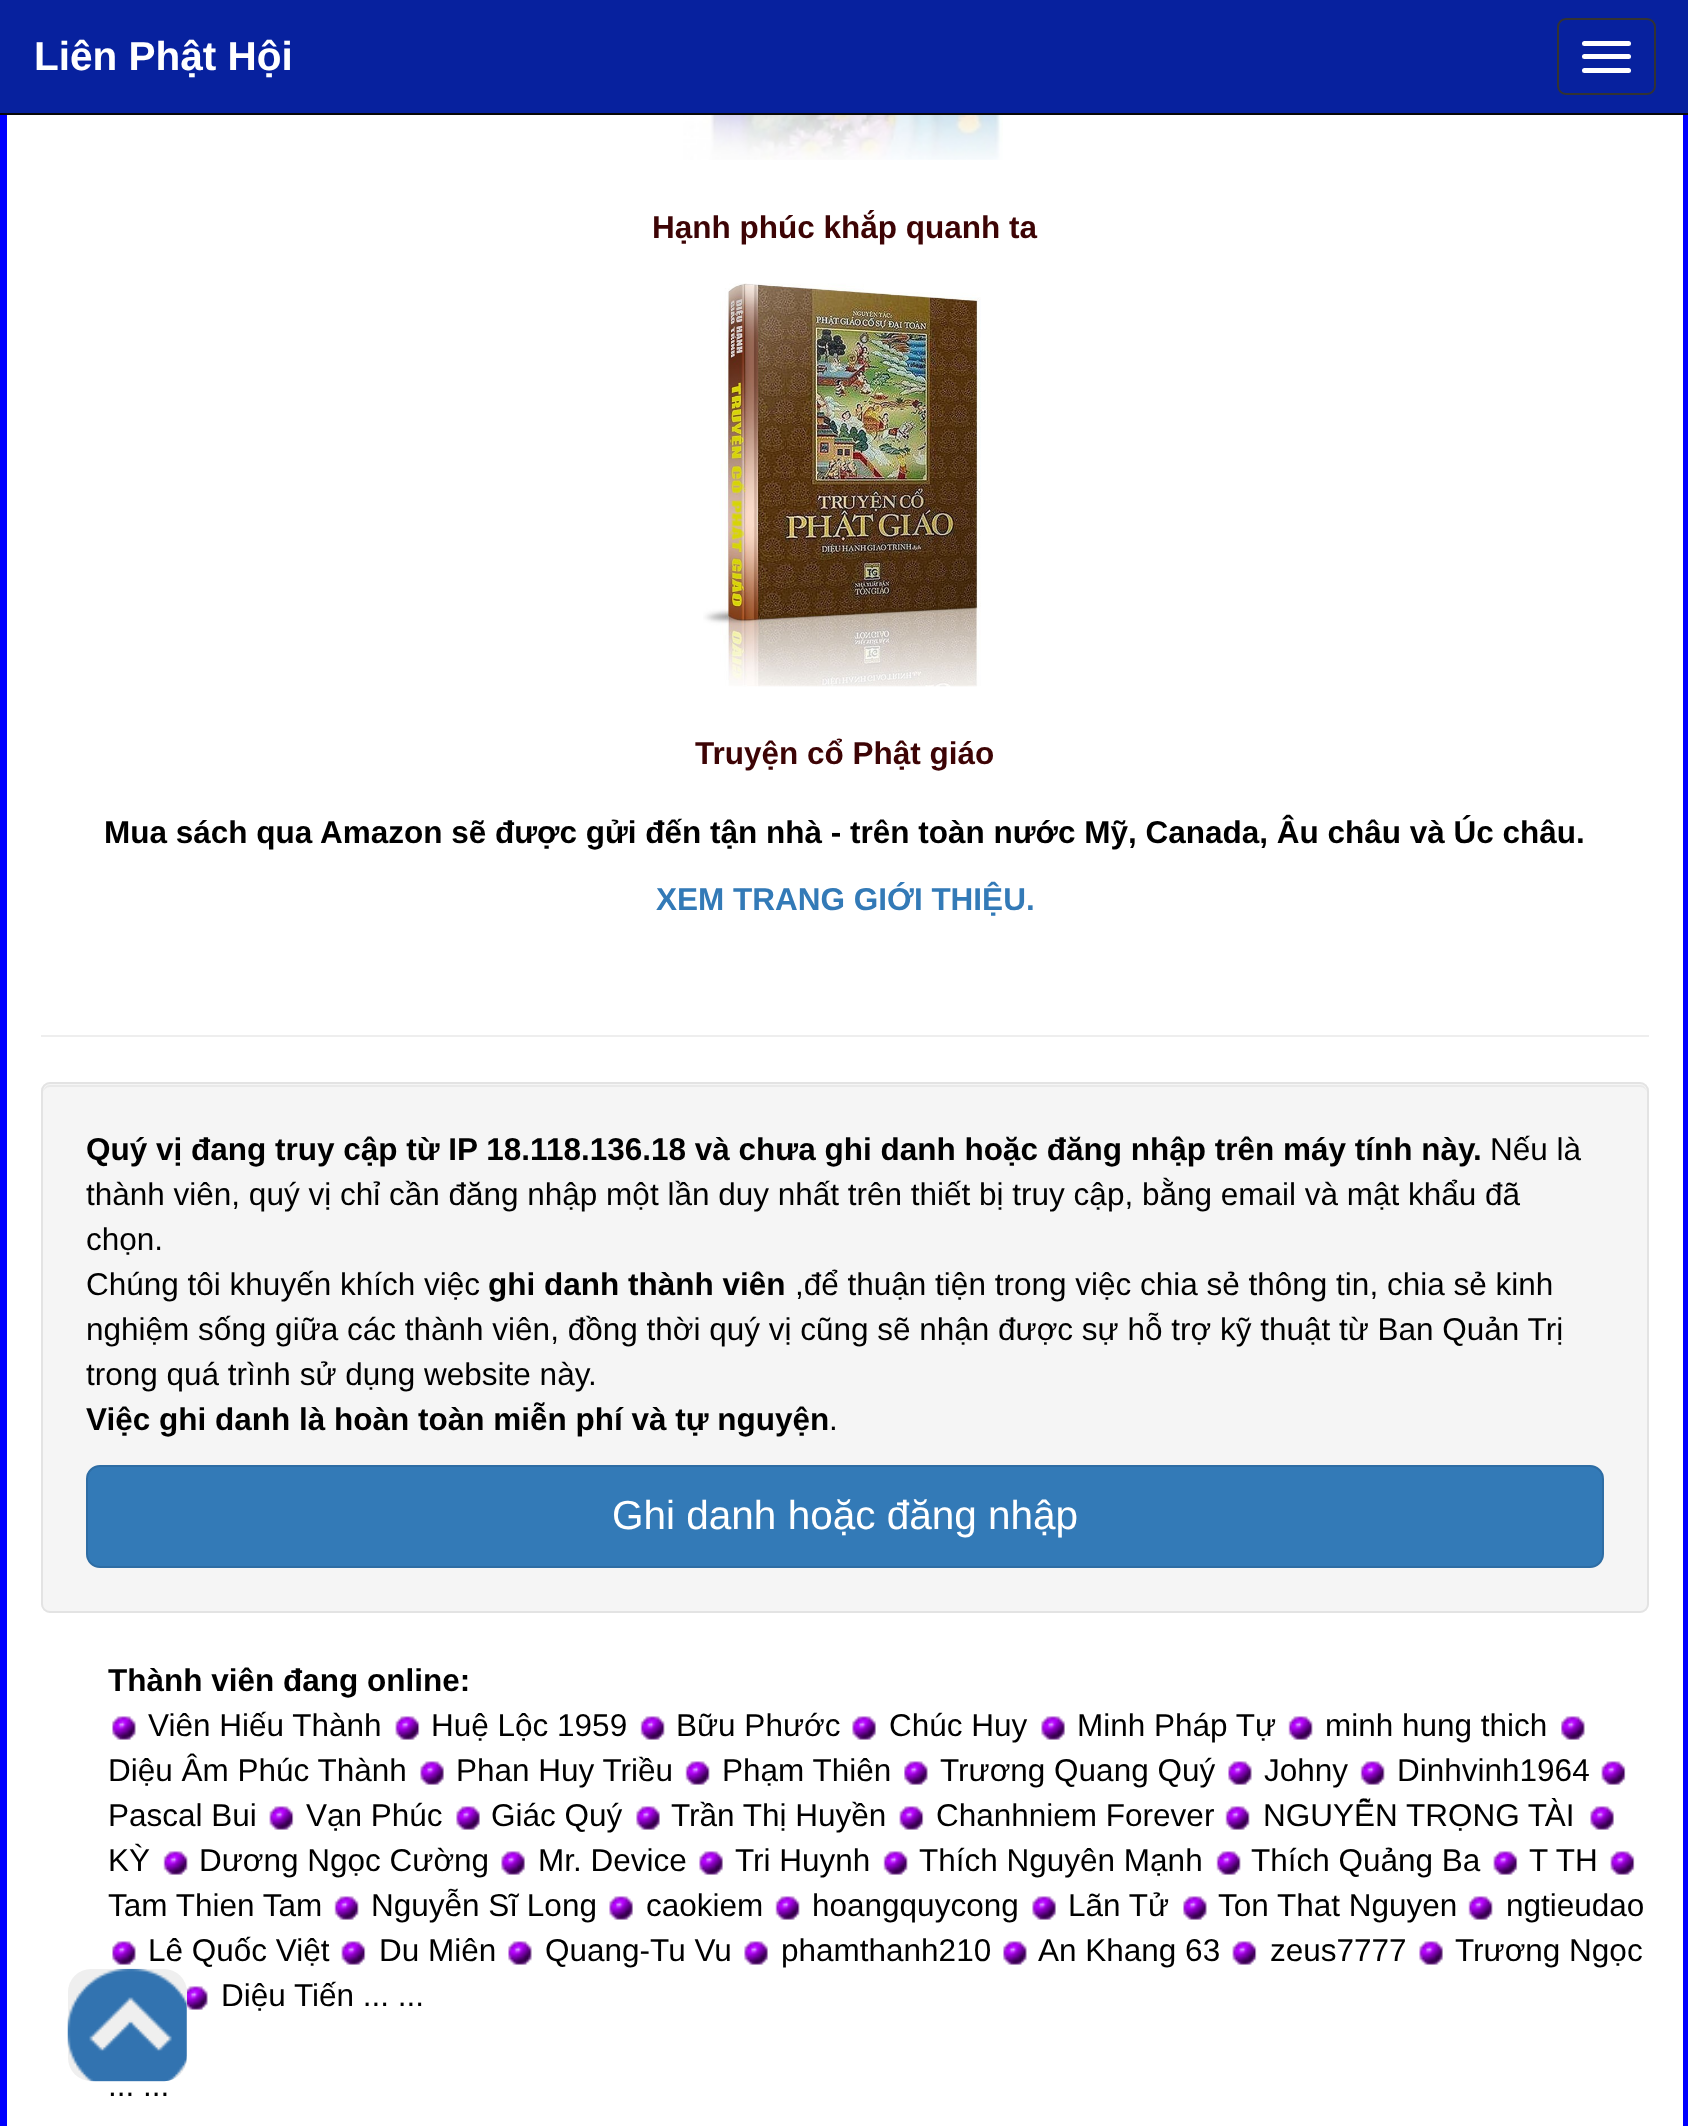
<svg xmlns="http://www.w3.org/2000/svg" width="1688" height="2126">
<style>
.a{font:bold 40.5px Liberation Sans;fill:#fff}
.b{font:bold 31.5px Liberation Sans;fill:#3d0405}
.c{font:bold 31.5px Liberation Sans;fill:#000}
.d{font:bold 31.5px Liberation Sans;fill:#337ab7}
.e{font:31.5px Liberation Sans;fill:#000}
.f{font:40.5px Liberation Sans;fill:#fff}
</style>
<rect width="100%" height="100%" fill="#fff"/>
<path fill="none" stroke="#00f" stroke-width="7" d="M3.5 -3.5h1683v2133H3.5z"/>
<path fill="#07219e" d="M0 0h1688v113H0z"/>
<path fill="#080808" d="M0 113h1688v2H0z"/>
<rect fill="none" stroke="#333" stroke-width="2" x="1558" y="19" width="97" height="75" rx="8"/>
<rect fill="#fff" x="1582" y="41" width="49" height="5" rx="2.5"/>
<rect fill="#fff" x="1582" y="54" width="49" height="5" rx="2.5"/>
<rect fill="#fff" x="1582" y="68" width="49" height="5" rx="2.5"/>
<image href="1.png" x="683" y="115" width="320" height="45"/>
<image href="2.png" x="703" y="283" width="278" height="404"/>
<path fill="#eee" d="M41 1035h1608v2H41z"/>
<rect fill="#f5f5f5" x="41" y="1082" width="1608" height="531" rx="9"/>
<path fill="#e9e9e9" d="M50 1087h1590c4 0 7 3 7 7c0-4-2-9-7-9h-1590c-5 0-7 5-7 9c0-4 3-7 7-7z"/>
<rect fill="none" stroke="#e3e3e3" stroke-width="2" x="42" y="1083" width="1606" height="529" rx="8"/>
<rect fill="#337ab7" stroke="#2e6da4" stroke-width="2" x="87" y="1466" width="1516" height="101" rx="13"/>
<image href="3.png" x="112" y="1716" width="24" height="24"/>
<image href="4.png" x="395" y="1716" width="25" height="24"/>
<image href="5.png" x="640" y="1716" width="25" height="24"/>
<image href="6.png" x="852" y="1716" width="24" height="24"/>
<image href="7.png" x="1041" y="1716" width="24" height="24"/>
<image href="8.png" x="1288" y="1716" width="25" height="24"/>
<image href="9.png" x="1561" y="1716" width="24" height="24"/>
<image href="7.png" x="420" y="1761" width="24" height="24"/>
<image href="5.png" x="685" y="1761" width="25" height="24"/>
<image href="9.png" x="904" y="1761" width="24" height="24"/>
<image href="3.png" x="1228" y="1761" width="24" height="24"/>
<image href="8.png" x="1360" y="1761" width="25" height="24"/>
<image href="10.png" x="1601" y="1761" width="25" height="24"/>
<image href="4.png" x="269" y="1806" width="25" height="24"/>
<image href="7.png" x="456" y="1806" width="24" height="24"/>
<image href="6.png" x="636" y="1806" width="24" height="24"/>
<image href="4.png" x="899" y="1806" width="25" height="24"/>
<image href="5.png" x="1225" y="1806" width="25" height="24"/>
<image href="6.png" x="1590" y="1806" width="24" height="24"/>
<image href="5.png" x="163" y="1851" width="25" height="24"/>
<image href="11.png" x="501" y="1851" width="24" height="24"/>
<image href="6.png" x="699" y="1851" width="24" height="24"/>
<image href="5.png" x="883" y="1851" width="25" height="24"/>
<image href="5.png" x="1216" y="1851" width="25" height="24"/>
<image href="10.png" x="1493" y="1851" width="25" height="24"/>
<image href="10.png" x="1610" y="1851" width="25" height="24"/>
<image href="5.png" x="334" y="1896" width="25" height="24"/>
<image href="6.png" x="609" y="1896" width="24" height="24"/>
<image href="8.png" x="775" y="1896" width="25" height="24"/>
<image href="7.png" x="1032" y="1896" width="24" height="24"/>
<image href="3.png" x="1183" y="1896" width="24" height="24"/>
<image href="5.png" x="1468" y="1896" width="25" height="24"/>
<image href="3.png" x="112" y="1941" width="24" height="24"/>
<image href="4.png" x="341" y="1941" width="25" height="24"/>
<image href="12.png" x="508" y="1941" width="24" height="24"/>
<image href="6.png" x="744" y="1941" width="24" height="24"/>
<image href="13.png" x="1003" y="1941" width="24" height="24"/>
<image href="4.png" x="1232" y="1941" width="25" height="24"/>
<image href="6.png" x="1419" y="1941" width="24" height="24"/>
<image href="14.png" x="186" y="1986" width="22" height="24"/>
<rect fill="#efefef" x="68" y="1969" width="119" height="112" rx="23"/>
<image href="15.png" x="67" y="1968" width="120" height="114"/>
<text class="a" x="34" y="70">Liên Phật Hội</text>
<text class="b" x="652" y="238">Hạnh phúc khắp quanh ta</text>
<text class="b" x="695" y="764">Truyện cổ Phật giáo</text>
<text class="c" x="104" y="843">Mua sách qua Amazon sẽ được gửi đến tận nhà - trên toàn nước Mỹ, Canada, Âu châu và Úc châu.</text>
<text class="d" x="656" y="910">XEM TRANG GIỚI THIỆU.</text>
<text class="c" x="86" y="1160">Quý vị đang truy cập từ IP 18.118.136.18 và chưa ghi danh hoặc đăng nhập trên máy tính này.</text>
<text class="e" x="1490" y="1160">Nếu là</text>
<text class="e" x="86" y="1205">thành viên, quý vị chỉ cần đăng nhập một lần duy nhất trên thiết bị truy cập, bằng email và mật khẩu đã</text>
<text class="e" x="86" y="1250">chọn.</text>
<text class="e" x="86" y="1295">Chúng tôi khuyến khích việc</text>
<text class="c" x="488" y="1295">ghi danh thành viên</text>
<text class="e" x="795" y="1295">,để thuận tiện trong việc chia sẻ thông tin, chia sẻ kinh</text>
<text class="e" x="86" y="1340">nghiệm sống giữa các thành viên, đồng thời quý vị cũng sẽ nhận được sự hỗ trợ kỹ thuật từ Ban Quản Trị</text>
<text class="e" x="86" y="1385">trong quá trình sử dụng website này.</text>
<text class="c" x="86" y="1430">Việc ghi danh là hoàn toàn miễn phí và tự nguyện</text>
<text class="e" x="829" y="1430">.</text>
<text class="f" x="612" y="1529">Ghi danh hoặc đăng nhập</text>
<text class="c" x="108" y="1691">Thành viên đang online:</text>
<text class="e" x="148" y="1736">Viên Hiếu Thành</text>
<text class="e" x="431" y="1736">Huệ Lộc 1959</text>
<text class="e" x="676" y="1736">Bữu Phước</text>
<text class="e" x="889" y="1736">Chúc Huy</text>
<text class="e" x="1077" y="1736">Minh Pháp Tự</text>
<text class="e" x="1325" y="1736">minh hung thich</text>
<text class="e" x="108" y="1781">Diệu Âm Phúc Thành</text>
<text class="e" x="456" y="1781">Phan Huy Triều</text>
<text class="e" x="722" y="1781">Phạm Thiên</text>
<text class="e" x="940" y="1781">Trương Quang Quý</text>
<text class="e" x="1264" y="1781">Johny</text>
<text class="e" x="1397" y="1781">Dinhvinh1964</text>
<text class="e" x="108" y="1826">Pascal Bui</text>
<text class="e" x="306" y="1826">Vạn Phúc</text>
<text class="e" x="491" y="1826">Giác Quý</text>
<text class="e" x="671" y="1826">Trần Thị Huyền</text>
<text class="e" x="936" y="1826">Chanhniem Forever</text>
<text class="e" x="1263" y="1826">NGUYỄN TRỌNG TÀI</text>
<text class="e" x="108" y="1871">KỲ</text>
<text class="e" x="199" y="1871">Dương Ngọc Cường</text>
<text class="e" x="538" y="1871">Mr. Device</text>
<text class="e" x="735" y="1871">Tri Huynh</text>
<text class="e" x="919" y="1871">Thích Nguyên Mạnh</text>
<text class="e" x="1251" y="1871">Thích Quảng Ba</text>
<text class="e" x="1529" y="1871">T TH</text>
<text class="e" x="108" y="1916">Tam Thien Tam</text>
<text class="e" x="371" y="1916">Nguyễn Sĩ Long</text>
<text class="e" x="646" y="1916">caokiem</text>
<text class="e" x="812" y="1916">hoangquycong</text>
<text class="e" x="1068" y="1916">Lãn Tử</text>
<text class="e" x="1218" y="1916">Ton That Nguyen</text>
<text class="e" x="1506" y="1916">ngtieudao</text>
<text class="e" x="148" y="1961">Lê Quốc Việt</text>
<text class="e" x="379" y="1961">Du Miên</text>
<text class="e" x="545" y="1961">Quang-Tu Vu</text>
<text class="e" x="781" y="1961">phamthanh210</text>
<text class="e" x="1038" y="1961">An Khang 63</text>
<text class="e" x="1270" y="1961">zeus7777</text>
<text class="e" x="1455" y="1961">Trương Ngọc</text>
<text class="e" x="221" y="2006">Diệu Tiến ... ...</text>
<text class="e" x="108" y="2096">... ...</text>
</svg>
